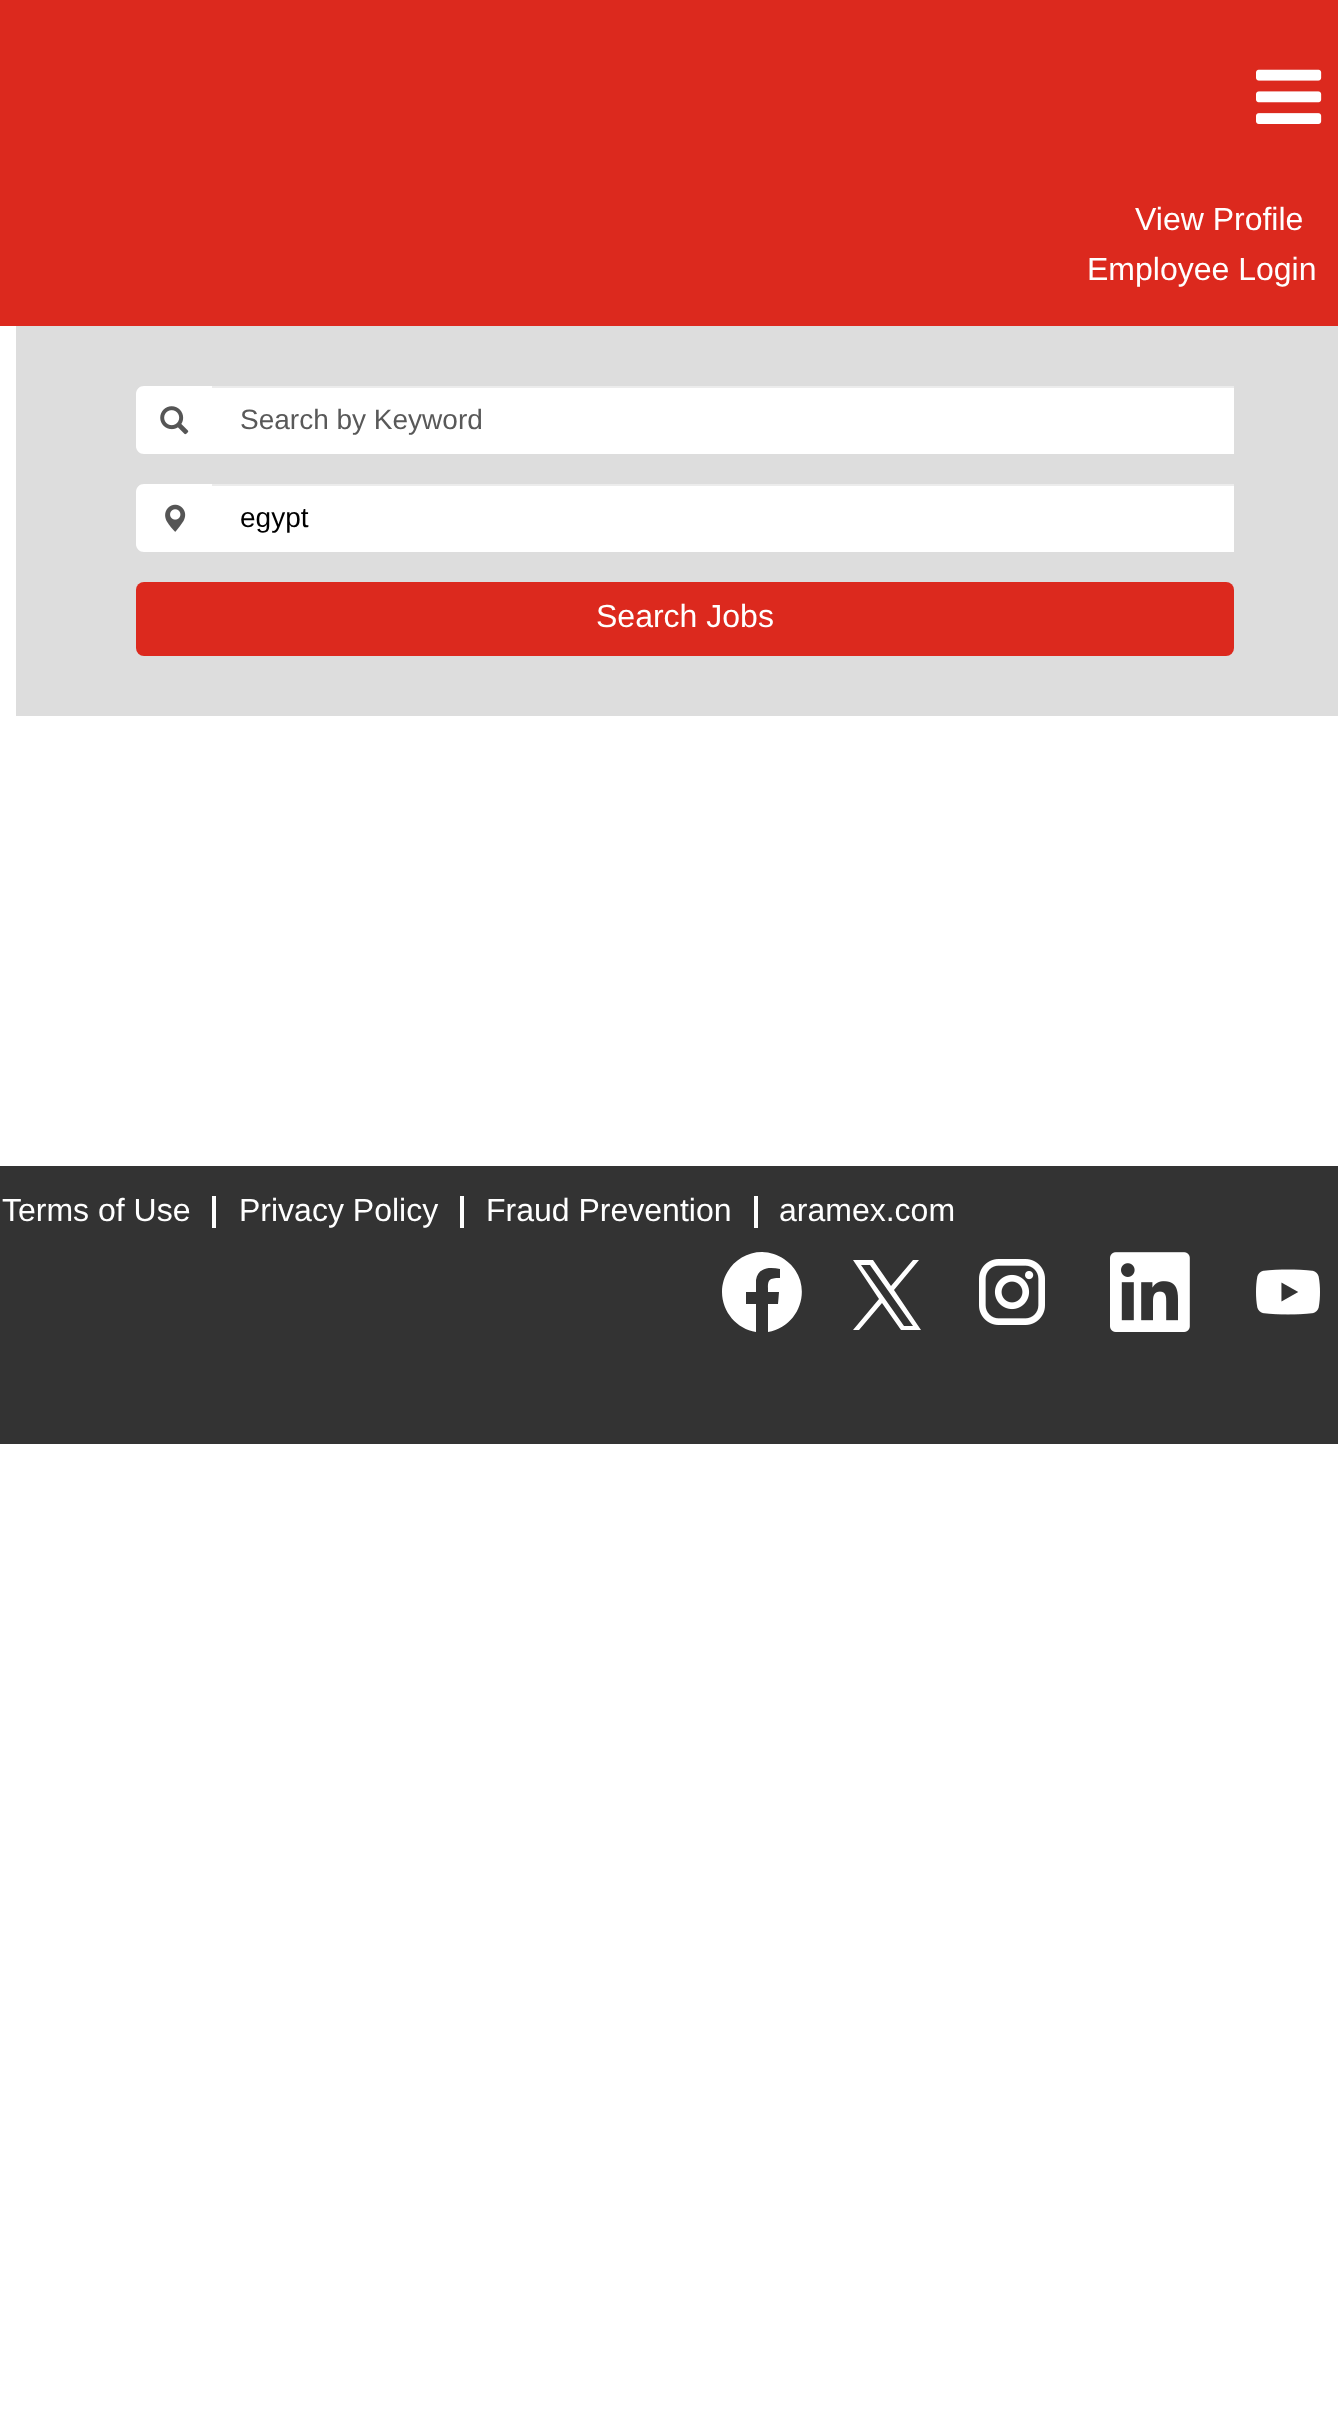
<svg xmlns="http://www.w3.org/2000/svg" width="1338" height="2434">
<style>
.a{font:32px Liberation Sans;fill:#fff}
.b{font:28px Liberation Sans;fill:#595959}
.c{font:28px Liberation Sans;fill:#000}
</style>
<rect width="100%" height="100%" fill="#fff"/>
<path fill="#dc291e" d="M0 0h1338v326H0z"/>
<image href="1.png" x="1256" y="69" width="66" height="55"/>
<path fill="#ddd" d="M16 326h1322v390H16z"/>
<path fill="#fff" d="M144 386h68v68h-68c-4.5 0-8-3.5-8-8v-52c0-4.5 3.5-8 8-8z"/>
<image href="2.png" x="160" y="406" width="29" height="29"/>
<path fill="#fff" d="M212 388h1022v66H212z"/>
<path fill="#ececec" d="M212 386h1022v2H212z"/>
<path fill="#fff" d="M144 484h68v68h-68c-4.5 0-8-3.5-8-8v-52c0-4.5 3.5-8 8-8z"/>
<image href="3.png" x="165" y="504" width="21" height="28"/>
<path fill="#fff" d="M212 486h1022v66H212z"/>
<path fill="#ececec" d="M212 484h1022v2H212z"/>
<rect fill="#dc291e" x="136" y="582" width="1098" height="74" rx="8"/>
<path fill="#333" d="M0 1166h1338v278H0z"/>
<path fill="#fff" d="M212 1196h4v32H212z"/>
<path fill="#fff" d="M460 1196h4v32H460z"/>
<path fill="#fff" d="M754 1196h4v32H754z"/>
<path fill="#fff" d="M762 1252c-22 0-40 18-40 40c0 20 15 37 34 40v-28h-10v-12h10v-12c2-13 14-13 24-11v9c-13 0-12 3-12 14h11l-1 12h-10v28c35-6 47-52 16-73c-6-4-14-7-22-7z"/>
<path fill="#fff" d="M894 1290l25-30h-6l-22 26l-18-26h-20l26 39l-26 31h6l23-27l19 27h20zm-9 9l-24-34h9l43 61h-9z"/>
<image href="4.png" x="979" y="1259" width="66" height="66"/>
<image href="5.png" x="1110" y="1252" width="80" height="80"/>
<image href="6.png" x="1256" y="1269" width="64" height="46"/>
<text class="a" x="1135" y="230">View Profile</text>
<text class="a" x="1087" y="280">Employee Login</text>
<text class="b" x="240" y="429">Search by Keyword</text>
<text class="c" x="240" y="527">egypt</text>
<text class="a" x="596" y="627">Search Jobs</text>
<text class="a" x="2" y="1221">Terms of Use</text>
<text class="a" x="239" y="1221">Privacy Policy</text>
<text class="a" x="486" y="1221">Fraud Prevention</text>
<text class="a" x="779" y="1221">aramex.com</text>
</svg>
